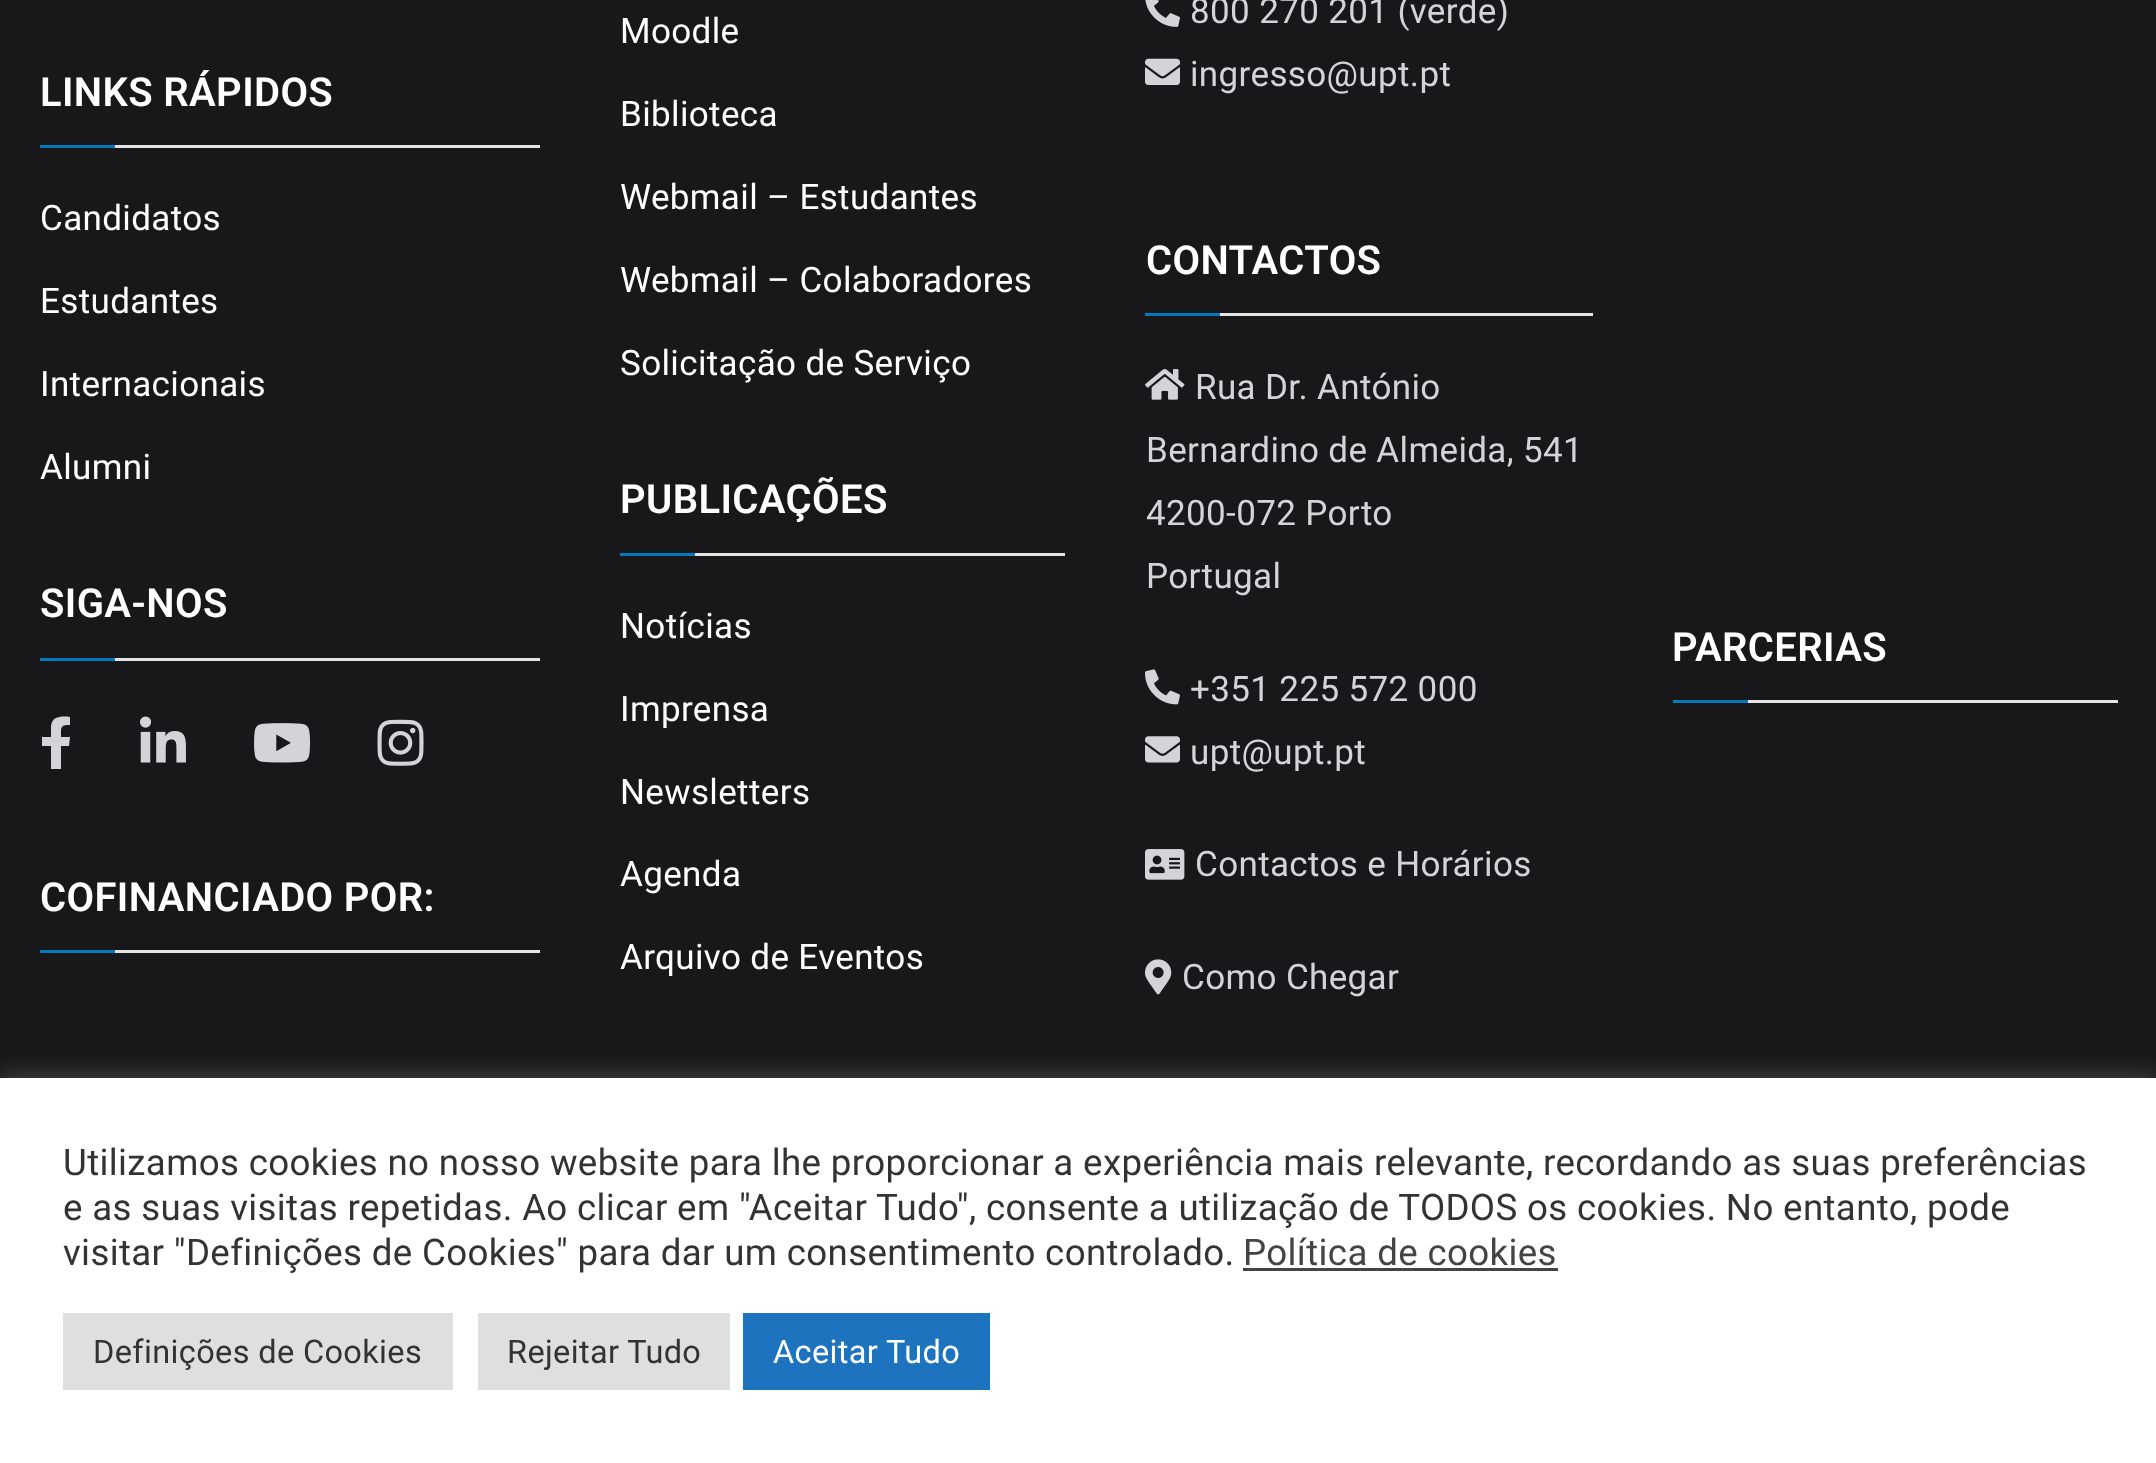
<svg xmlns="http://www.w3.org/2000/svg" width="2156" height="1463">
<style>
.a{font:600 40px Roboto;letter-spacing:0.36px;fill:#fff}
.b{font:35px Roboto;letter-spacing:0.36px;fill:#fff}
.c{font:35px Roboto;letter-spacing:0.36px;fill:#d4d4d8}
.d{font:36.67px Roboto;letter-spacing:0.36px;fill:#333}
.e{font:36.67px Roboto;letter-spacing:0.36px;fill:#444}
.f{font:32.5px Roboto;letter-spacing:0.36px;fill:#333}
.g{font:32.5px Roboto;letter-spacing:0.36px;fill:#fff}
</style>
<rect width="100%" height="100%" fill="#18181b"/>
<path fill="#e4e4e7" d="M115 145h425v3H115z"/>
<path fill="#027abb" d="M40 145h75v3H40z"/>
<path fill="#e4e4e7" d="M115 658h425v3H115z"/>
<path fill="#027abb" d="M40 658h75v3H40z"/>
<path fill="#d4d4d8" d="M69 746h-8v23h-10v-23h-9v-9h9v-11c1-10 11-10 19-9v8c-10 0-9 2-9 12h9z"/>
<image href="1.png" x="140" y="716" width="46" height="47"/>
<image href="2.png" x="254" y="723" width="56" height="40"/>
<image href="3.png" x="377" y="719" width="47" height="47"/>
<path fill="#e4e4e7" d="M115 950h425v3H115z"/>
<path fill="#027abb" d="M40 950h75v3H40z"/>
<path fill="#e4e4e7" d="M695 553h370v3H695z"/>
<path fill="#027abb" d="M620 553h75v3H620z"/>
<image href="4.png" x="1145" y="0" width="35" height="27"/>
<image href="5.png" x="1145" y="58" width="35" height="27"/>
<path fill="#e4e4e7" d="M1220 313h373v3H1220z"/>
<path fill="#027abb" d="M1145 313h75v3H1145z"/>
<image href="6.png" x="1145" y="369" width="40" height="31"/>
<image href="7.png" x="1145" y="669" width="35" height="36"/>
<image href="8.png" x="1145" y="736" width="35" height="27"/>
<image href="9.png" x="1145" y="849" width="40" height="31"/>
<image href="10.png" x="1145" y="959" width="27" height="36"/>
<path fill="#e4e4e7" d="M1748 700h370v3H1748z"/>
<path fill="#027abb" d="M1673 700h75v3H1673z"/>
<path fill="#acabab4d" filter="blur(12.5px)" d="M0 1075h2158v388H0z"/>
<path fill="#fff" d="M0 1078h2156v385H0z"/>
<path fill="#444" d="M1243 1268h315v3H1243z"/>
<path fill="#dedfe0" d="M63 1313h390v77H63z"/>
<path fill="#dedfe0" d="M478 1313h252v77H478z"/>
<path fill="#1e73be" d="M743 1313h247v77H743z"/>
<text class="a" x="40" y="106">LINKS RÁPIDOS</text>
<text class="b" x="40" y="230">Candidatos</text>
<text class="b" x="40" y="313">Estudantes</text>
<text class="b" x="40" y="396">Internacionais</text>
<text class="b" x="40" y="479">Alumni</text>
<text class="a" x="40" y="617">SIGA-NOS</text>
<text class="a" x="40" y="911">COFINANCIADO POR:</text>
<text class="b" x="620" y="43">Moodle</text>
<text class="b" x="620" y="126">Biblioteca</text>
<text class="b" x="620" y="209">Webmail – Estudantes</text>
<text class="b" x="620" y="292">Webmail – Colaboradores</text>
<text class="b" x="620" y="375">Solicitação de Serviço</text>
<text class="a" x="620" y="513">PUBLICAÇÕES</text>
<text class="b" x="620" y="638">Notícias</text>
<text class="b" x="620" y="721">Imprensa</text>
<text class="b" x="620" y="804">Newsletters</text>
<text class="b" x="620" y="886">Agenda</text>
<text class="b" x="620" y="969">Arquivo de Eventos</text>
<text class="c" x="1190" y="23">800 270 201 (verde)</text>
<text class="c" x="1190" y="86">ingresso@upt.pt</text>
<text class="a" x="1146" y="274">CONTACTOS</text>
<text class="c" x="1195" y="399">Rua Dr. António</text>
<text class="c" x="1146" y="462">Bernardino de Almeida, 541</text>
<text class="c" x="1146" y="525">4200-072 Porto</text>
<text class="c" x="1146" y="588">Portugal</text>
<text class="c" x="1190" y="701">+351 225 572 000</text>
<text class="c" x="1190" y="764">upt@upt.pt</text>
<text class="c" x="1195" y="876">Contactos e Horários</text>
<text class="c" x="1182" y="989">Como Chegar</text>
<text class="a" x="1672" y="661">PARCERIAS</text>
<text class="d" x="63" y="1175">Utilizamos cookies no nosso website para lhe proporcionar a experiência mais relevante, recordando as suas preferências</text>
<text class="d" x="63" y="1220">e as suas visitas repetidas. Ao clicar em "Aceitar Tudo", consente a utilização de TODOS os cookies. No entanto, pode</text>
<text class="d" x="63" y="1265">visitar "Definições de Cookies" para dar um consentimento controlado.</text>
<text class="e" x="1243" y="1265">Política de cookies</text>
<text class="f" x="93" y="1363">Definições de Cookies</text>
<text class="f" x="507" y="1363">Rejeitar Tudo</text>
<text class="g" x="773" y="1363">Aceitar Tudo</text>
</svg>
